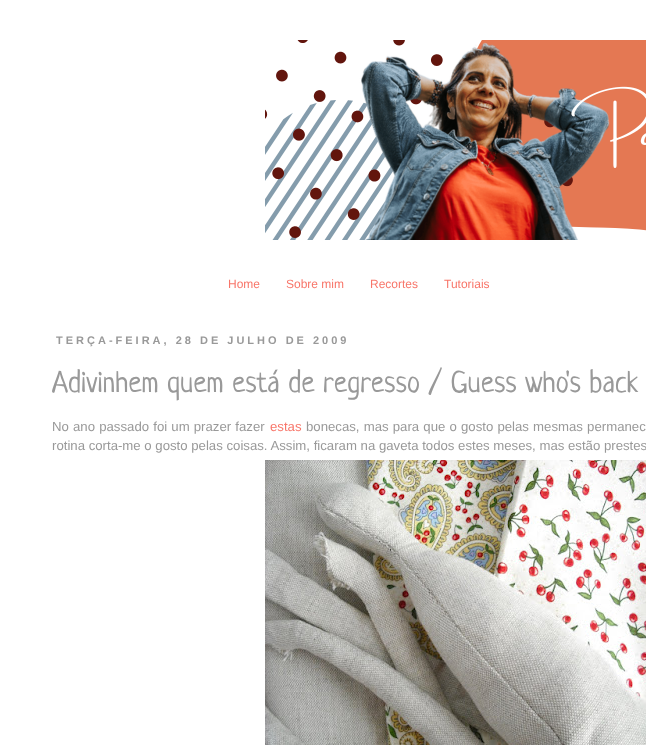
<svg xmlns="http://www.w3.org/2000/svg" width="646" height="745">
<style>
.a{font:12px Liberation Sans;fill:#f8766a}
.b{font:bold 11px Liberation Sans;letter-spacing:3px;fill:#999}
.c{font:30px Neucha;fill:#999}
.d{font:13.2px Liberation Sans;fill:#999}
.e{font:13.2px Liberation Sans;fill:#f8766a}
</style>
<rect width="100%" height="100%" fill="#fff"/>
<image href="1.png" x="265" y="40" width="381" height="200"/>
<image href="2.png" x="265" y="460" width="381" height="285"/>
<text class="a" x="228" y="288">Home</text>
<text class="a" x="286" y="288">Sobre mim</text>
<text class="a" x="370" y="288">Recortes</text>
<text class="a" x="444" y="288">Tutoriais</text>
<text class="b" x="56" y="344">TERÇA-FEIRA, 28 DE JULHO DE 2009</text>
<text class="c" x="52" y="392">Adivinhem quem está de regresso / Guess who's back</text>
<text class="d" x="52" y="431" word-spacing="0.5">No ano passado foi um prazer fazer</text>
<text class="e" x="270" y="431">estas</text>
<text class="d" x="306" y="431" word-spacing="0.5">bonecas, mas para que o gosto pelas mesmas permanec</text>
<text class="d" x="52" y="450">rotina corta-me o gosto pelas coisas. Assim, ficaram na gaveta todos estes meses, mas estão prestes</text>
</svg>
